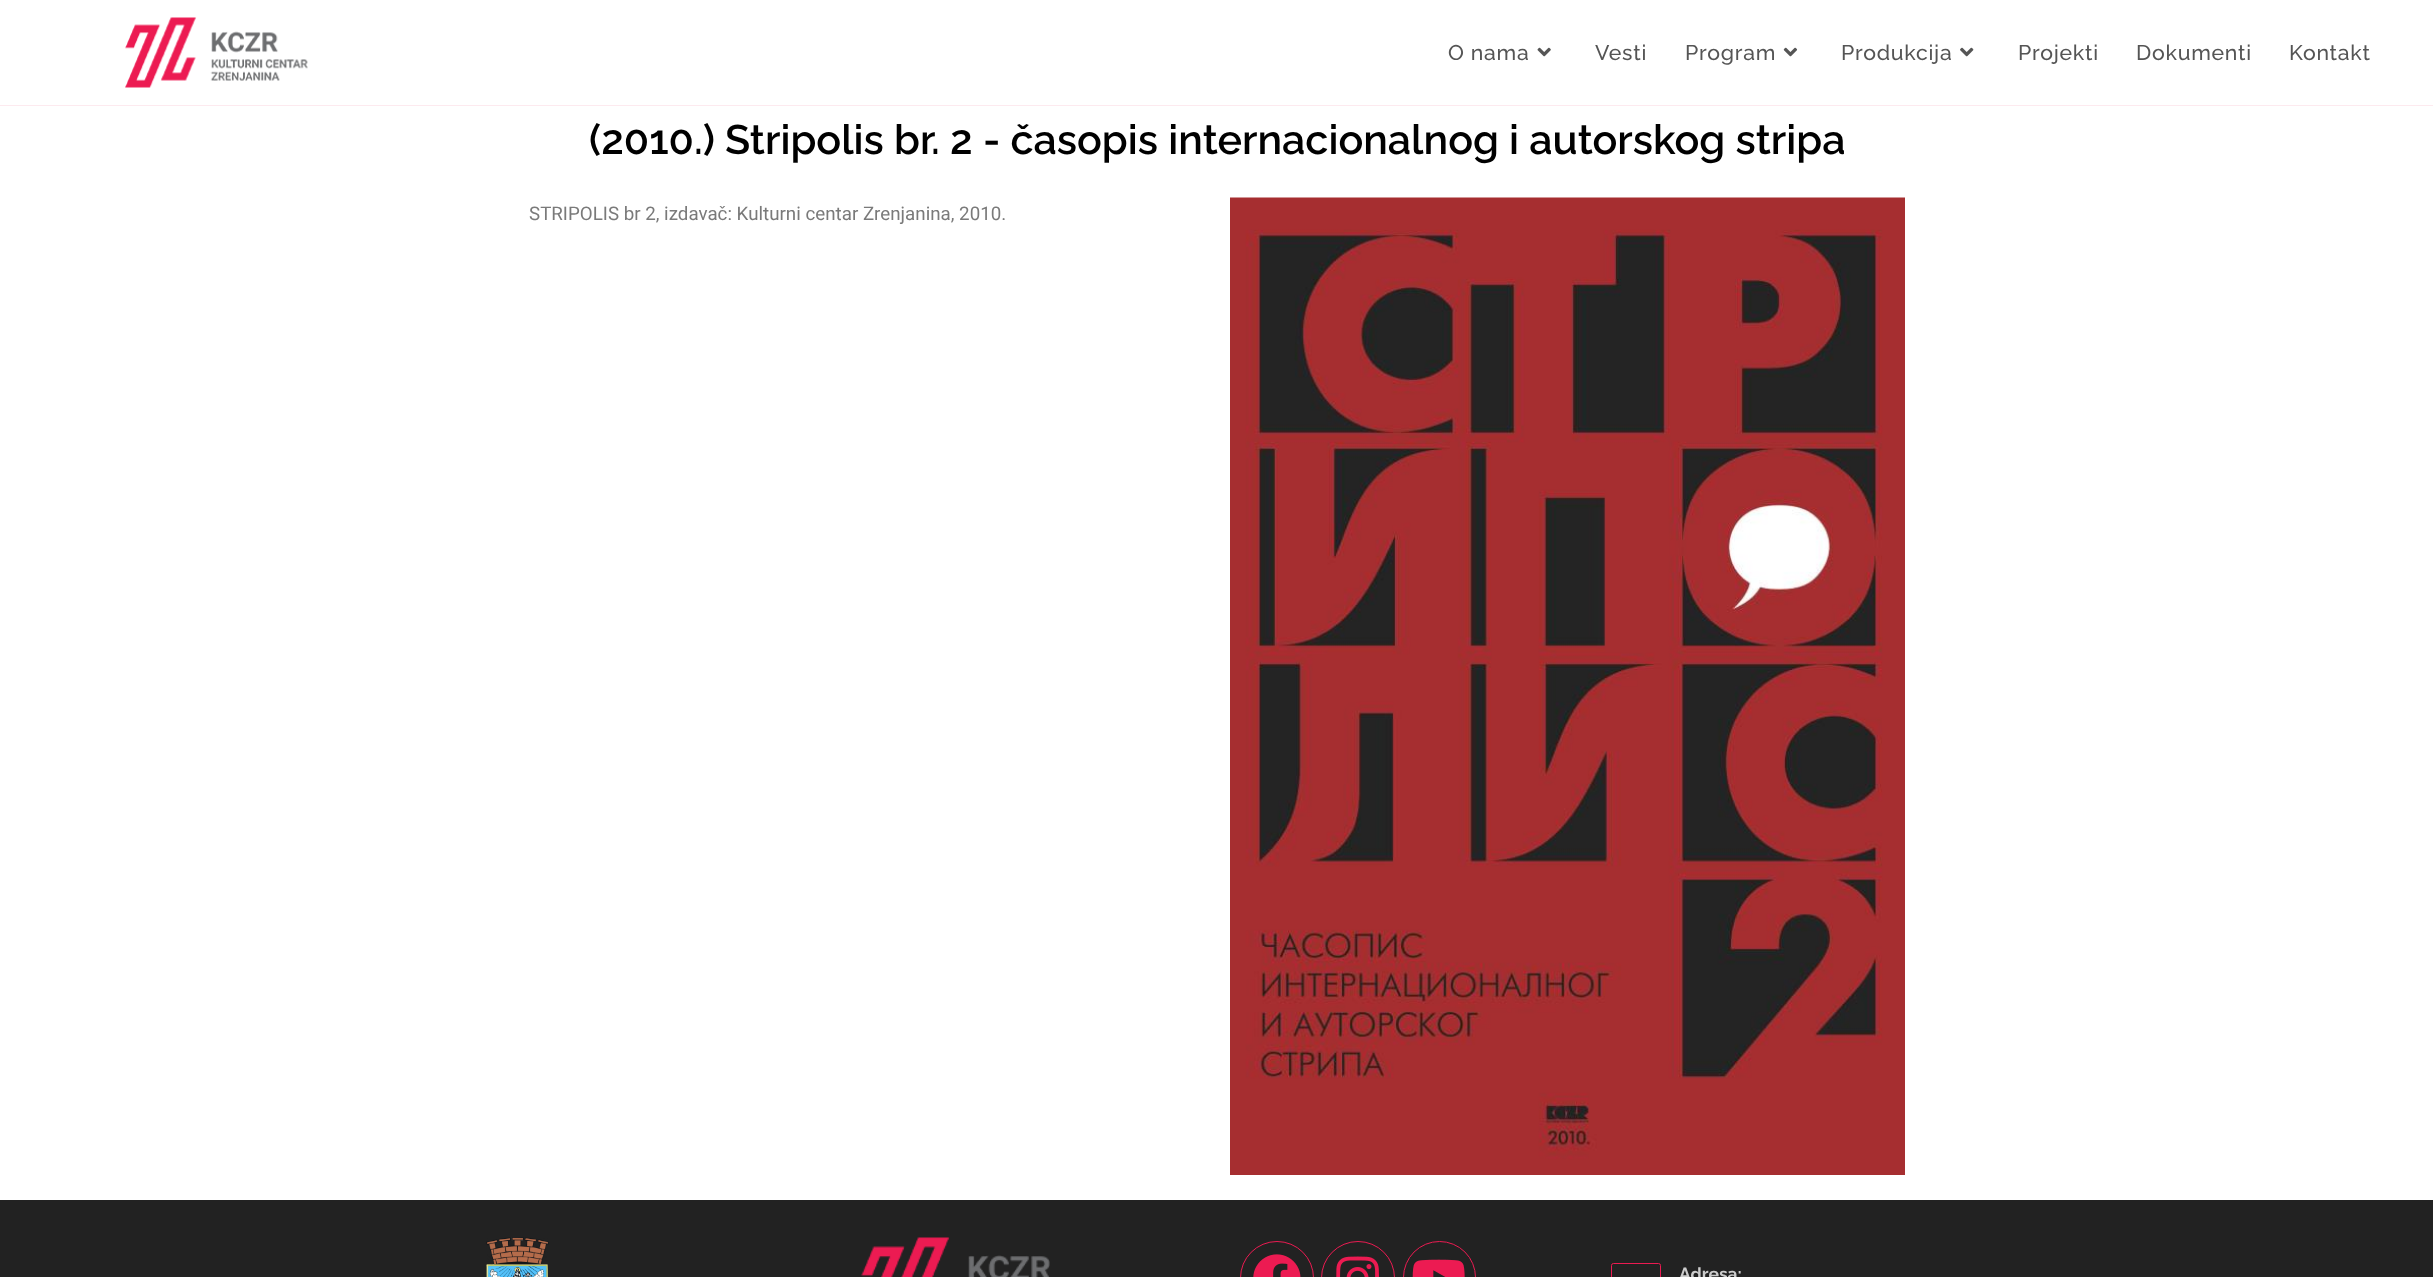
<svg xmlns="http://www.w3.org/2000/svg" width="2433" height="1277">
<style>
.a{font:500 21.25px Raleway;letter-spacing:0.75px;fill:#555}
.b{font:600 41.25px Raleway;fill:#000}
.c{font:18.75px Roboto;fill:#7a7a7a}
.d{font:bold 17.5px Raleway;fill:#ccc}
</style>
<rect width="100%" height="100%" fill="#fff"/>
<path fill="#fdeaef" d="M0 105h2433v1H0z"/>
<image href="1.png" x="125" y="17" width="183" height="71"/>
<image href="2.png" x="1537" y="47" width="14" height="10"/>
<image href="3.png" x="1783" y="47" width="15" height="10"/>
<image href="4.png" x="1960" y="47" width="14" height="10"/>
<image href="5.png" x="1230" y="197" width="675" height="978"/>
<path fill="#222" d="M0 1200h2433v77H0z"/>
<image href="6.png" x="486" y="1237" width="63" height="40"/>
<image href="7.png" x="861" y="1237" width="189" height="40"/>
<circle fill="none" stroke="#ec1b52" cx="1277" cy="1278" r="36.5"/>
<image href="8.png" x="1253" y="1254" width="48" height="23"/>
<circle fill="none" stroke="#ec1b52" cx="1358" cy="1278" r="36.5"/>
<image href="9.png" x="1336" y="1256" width="43" height="21"/>
<rect fill="none" stroke="#ec1b52" x="1403.5" y="1241.5" width="72" height="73" rx="36"/>
<image href="10.png" x="1412" y="1259" width="53" height="18"/>
<rect fill="none" stroke="#ec1b52" x="1611.5" y="1263.5" width="49" height="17" rx="2"/>
<text class="a" x="1448" y="60">O nama</text>
<text class="a" x="1595" y="60">Vesti</text>
<text class="a" x="1685" y="60">Program</text>
<text class="a" x="1841" y="60">Produkcija</text>
<text class="a" x="2018" y="60">Projekti</text>
<text class="a" x="2136" y="60">Dokumenti</text>
<text class="a" x="2289" y="60">Kontakt</text>
<text class="b" x="589" y="154">(2010.) Stripolis br. 2 - časopis internacionalnog i autorskog stripa</text>
<text class="c" x="529" y="220">STRIPOLIS br 2, izdavač: Kulturni centar Zrenjanina, 2010.</text>
<text class="d" x="1679" y="1280">Adresa:</text>
</svg>
